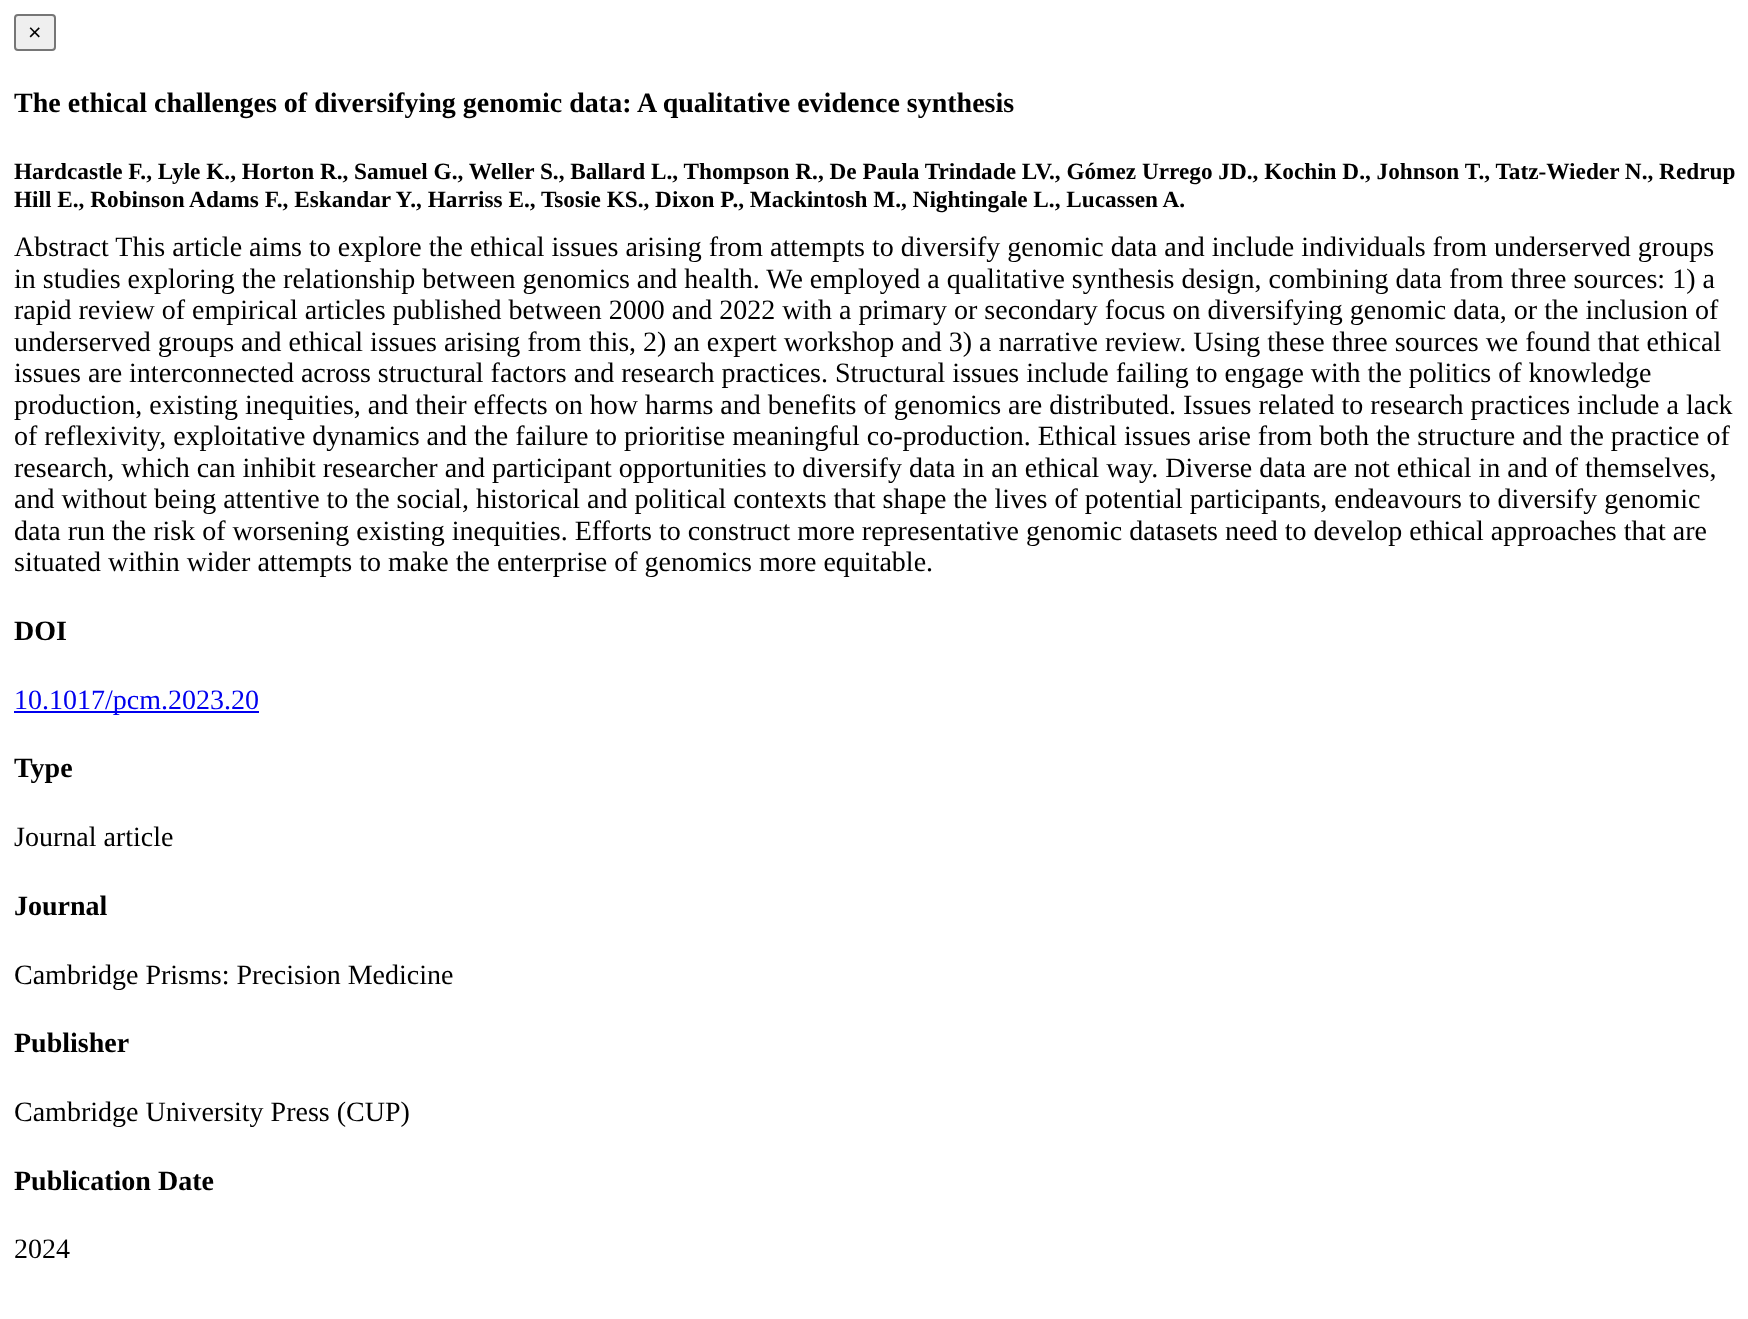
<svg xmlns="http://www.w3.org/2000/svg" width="1748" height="1319">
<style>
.a{font:23px Liberation Sans;fill:#000}
.b{font:bold 28px Liberation Serif;fill:#000}
.c{font:bold 23.25px Liberation Serif;fill:#000}
.d{font:28px Liberation Serif;fill:#000}
.e{font:28px Liberation Serif;fill:#00e}
</style>
<rect width="100%" height="100%" fill="#fff"/>
<rect fill="#efefef" stroke="#767676" stroke-width="2" x="15" y="15" width="40" height="35" rx="3"/>
<path fill="#00e" d="M14 711h245v2H14z"/>
<text class="a" x="28" y="40">×</text>
<text class="b" x="14" y="112">The ethical challenges of diversifying genomic data: A qualitative evidence synthesis</text>
<text class="c" x="14" y="179">Hardcastle F., Lyle K., Horton R., Samuel G., Weller S., Ballard L., Thompson R., De Paula Trindade LV., Gómez Urrego JD., Kochin D., Johnson T., Tatz-Wieder N., Redrup</text>
<text class="c" x="14" y="207">Hill E., Robinson Adams F., Eskandar Y., Harriss E., Tsosie KS., Dixon P., Mackintosh M., Nightingale L., Lucassen A.</text>
<text class="d" x="14" y="256">Abstract This article aims to explore the ethical issues arising from attempts to diversify genomic data and include individuals from underserved groups</text>
<text class="d" x="14" y="288">in studies exploring the relationship between genomics and health. We employed a qualitative synthesis design, combining data from three sources: 1) a</text>
<text class="d" x="14" y="319">rapid review of empirical articles published between 2000 and 2022 with a primary or secondary focus on diversifying genomic data, or the inclusion of</text>
<text class="d" x="14" y="351">underserved groups and ethical issues arising from this, 2) an expert workshop and 3) a narrative review. Using these three sources we found that ethical</text>
<text class="d" x="14" y="382">issues are interconnected across structural factors and research practices. Structural issues include failing to engage with the politics of knowledge</text>
<text class="d" x="14" y="414">production, existing inequities, and their effects on how harms and benefits of genomics are distributed. Issues related to research practices include a lack</text>
<text class="d" x="14" y="445">of reflexivity, exploitative dynamics and the failure to prioritise meaningful co-production. Ethical issues arise from both the structure and the practice of</text>
<text class="d" x="14" y="477">research, which can inhibit researcher and participant opportunities to diversify data in an ethical way. Diverse data are not ethical in and of themselves,</text>
<text class="d" x="14" y="508">and without being attentive to the social, historical and political contexts that shape the lives of potential participants, endeavours to diversify genomic</text>
<text class="d" x="14" y="540">data run the risk of worsening existing inequities. Efforts to construct more representative genomic datasets need to develop ethical approaches that are</text>
<text class="d" x="14" y="571">situated within wider attempts to make the enterprise of genomics more equitable.</text>
<text class="b" x="14" y="640">DOI</text>
<text class="e" x="14" y="709">10.1017/pcm.2023.20</text>
<text class="b" x="14" y="777">Type</text>
<text class="d" x="14" y="846">Journal article</text>
<text class="b" x="14" y="915">Journal</text>
<text class="d" x="14" y="984">Cambridge Prisms: Precision Medicine</text>
<text class="b" x="14" y="1052">Publisher</text>
<text class="d" x="14" y="1121">Cambridge University Press (CUP)</text>
<text class="b" x="14" y="1190">Publication Date</text>
<text class="d" x="14" y="1258">2024</text>
</svg>
